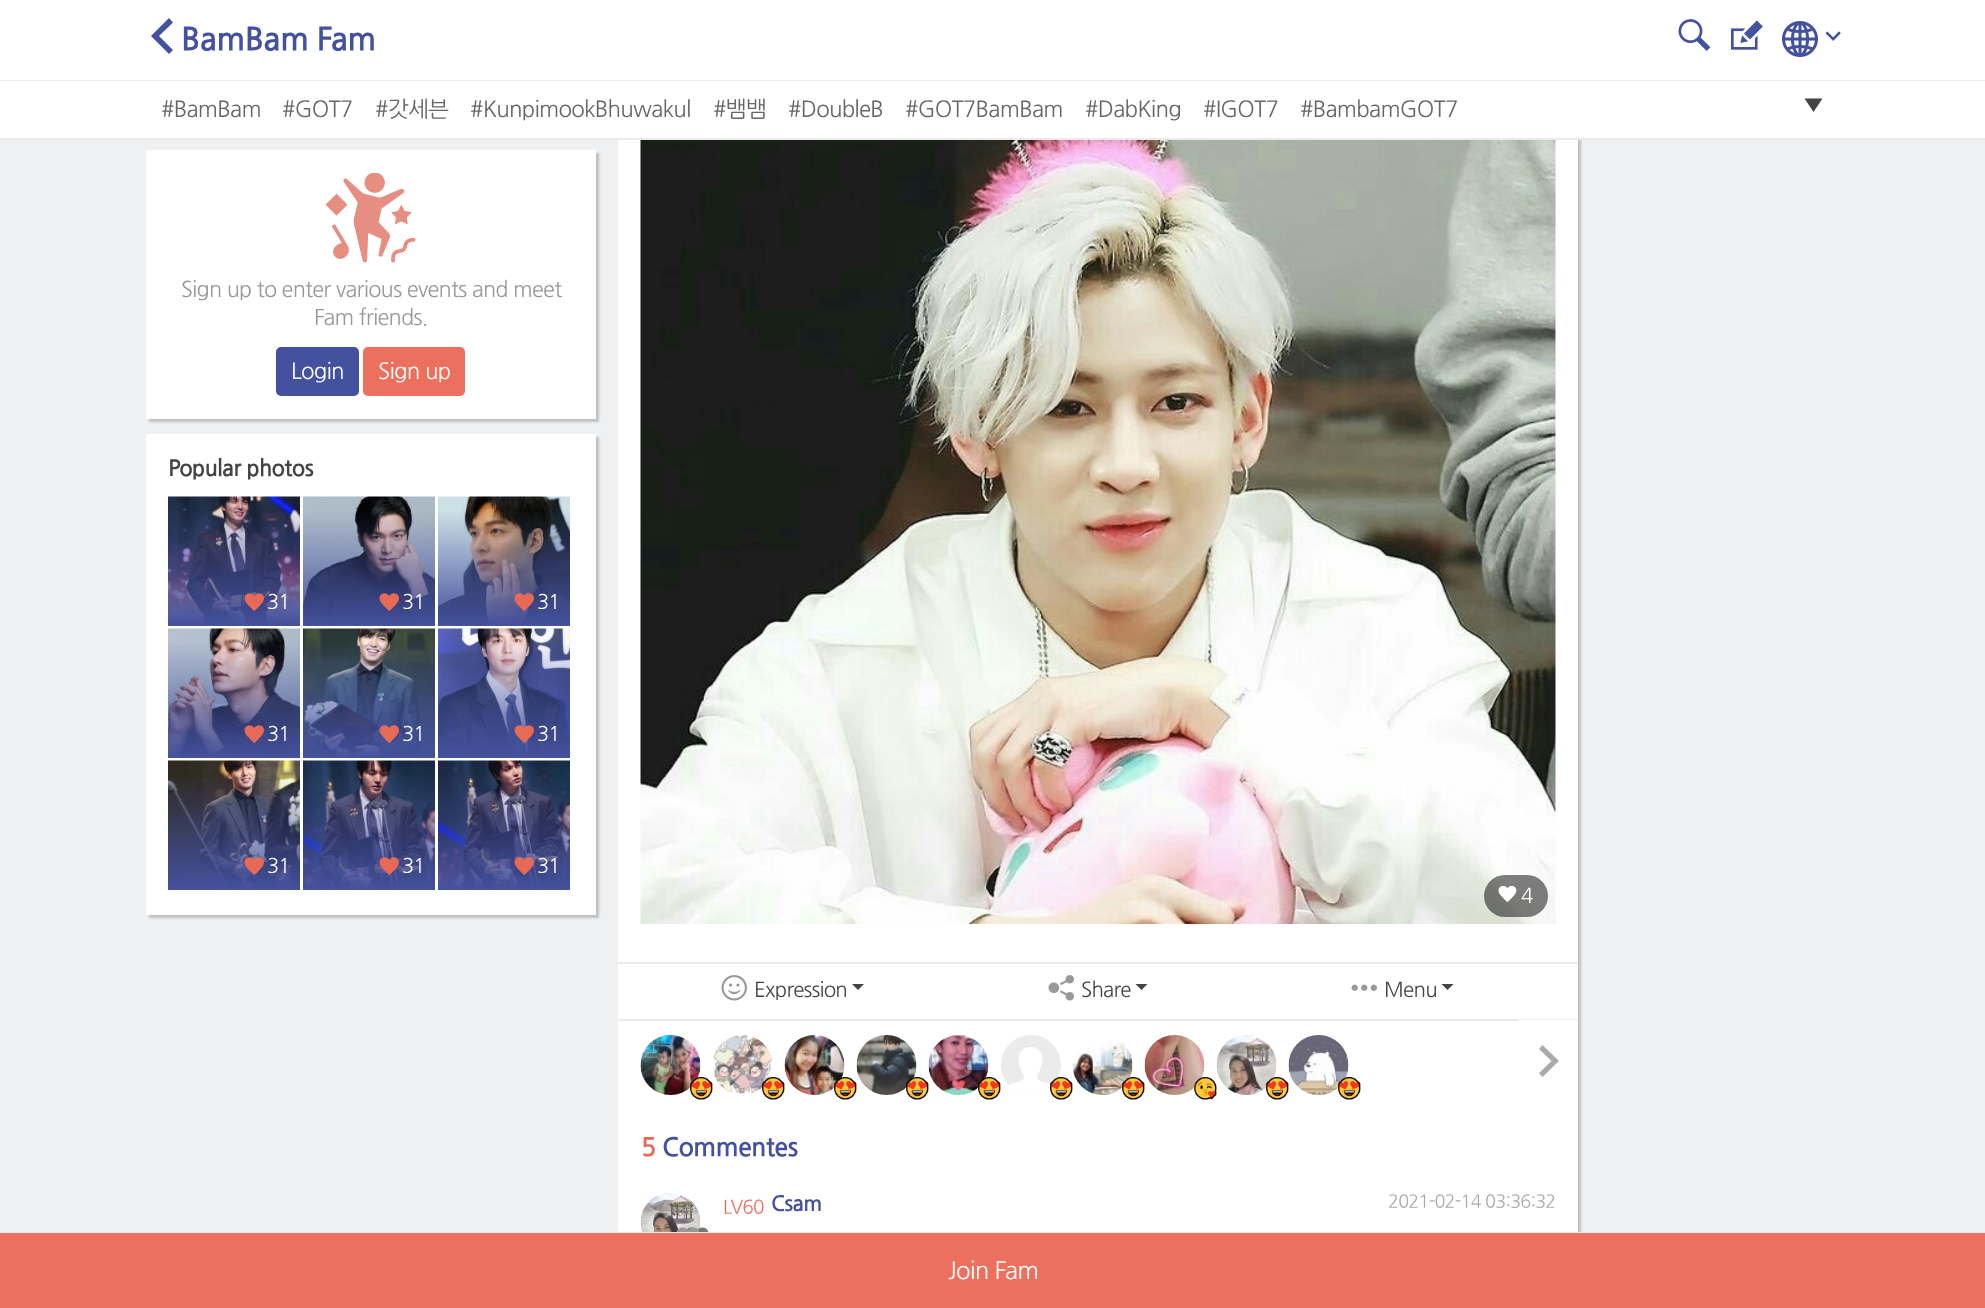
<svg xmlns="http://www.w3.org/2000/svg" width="1985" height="1308">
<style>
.a{font:bold 32px NanumGothic;letter-spacing:-0.75px;fill:#44519e}
.b{font:22.25px NanumGothic;letter-spacing:-0.75px;fill:#666}
.c{font:21.7px NanumGothic;letter-spacing:-0.75px;fill:#999}
.d{font:22.25px NanumGothic;letter-spacing:-0.75px;fill:#fff}
.e{font:bold 22.25px NanumGothic;letter-spacing:-0.75px;fill:#444}
.f{font:20px NanumGothic;letter-spacing:-0.75px;fill:#fff}
.g{font:20.5px NanumGothic;letter-spacing:-0.75px;fill:#fff}
.h{font:20.5px NanumGothic;letter-spacing:-0.75px;fill:#444}
.i{font:bold 25.5px NanumGothic;letter-spacing:-0.75px;fill:#e76a57}
.j{font:bold 25.5px NanumGothic;letter-spacing:-0.75px;fill:#44519e}
.k{font:19px NanumGothic;letter-spacing:-0.75px;fill:#ed705f}
.l{font:bold 21px NanumGothic;letter-spacing:-0.75px;fill:#44519e}
.m{font:18px NanumGothic;letter-spacing:-0.75px;fill:#aaa}
.n{font:24px NanumGothic;letter-spacing:-0.75px;fill:#fff}
</style>
<defs>
<linearGradient id="g1" gradientUnits="userSpaceOnUse" x1="234" y1="497" x2="234" y2="626"><stop offset="0.1" stop-color="#44519e" stop-opacity="0"/><stop offset="1" stop-color="#44519e"/></linearGradient>
<linearGradient id="g2" gradientUnits="userSpaceOnUse" x1="369" y1="497" x2="369" y2="626"><stop offset="0.1" stop-color="#44519e" stop-opacity="0"/><stop offset="1" stop-color="#44519e"/></linearGradient>
<linearGradient id="g3" gradientUnits="userSpaceOnUse" x1="504" y1="497" x2="504" y2="626"><stop offset="0.1" stop-color="#44519e" stop-opacity="0"/><stop offset="1" stop-color="#44519e"/></linearGradient>
<linearGradient id="g4" gradientUnits="userSpaceOnUse" x1="234" y1="629" x2="234" y2="758"><stop offset="0.1" stop-color="#44519e" stop-opacity="0"/><stop offset="1" stop-color="#44519e"/></linearGradient>
<linearGradient id="g5" gradientUnits="userSpaceOnUse" x1="369" y1="629" x2="369" y2="758"><stop offset="0.1" stop-color="#44519e" stop-opacity="0"/><stop offset="1" stop-color="#44519e"/></linearGradient>
<linearGradient id="g6" gradientUnits="userSpaceOnUse" x1="504" y1="629" x2="504" y2="758"><stop offset="0.1" stop-color="#44519e" stop-opacity="0"/><stop offset="1" stop-color="#44519e"/></linearGradient>
<linearGradient id="g7" gradientUnits="userSpaceOnUse" x1="234" y1="761" x2="234" y2="890"><stop offset="0.1" stop-color="#44519e" stop-opacity="0"/><stop offset="1" stop-color="#44519e"/></linearGradient>
<linearGradient id="g8" gradientUnits="userSpaceOnUse" x1="369" y1="761" x2="369" y2="890"><stop offset="0.1" stop-color="#44519e" stop-opacity="0"/><stop offset="1" stop-color="#44519e"/></linearGradient>
<linearGradient id="g9" gradientUnits="userSpaceOnUse" x1="504" y1="761" x2="504" y2="890"><stop offset="0.1" stop-color="#44519e" stop-opacity="0"/><stop offset="1" stop-color="#44519e"/></linearGradient>
</defs>
<rect width="100%" height="100%" fill="#eef0f2"/>
<path fill="#00000033" filter="blur(1px)" d="M621 -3h960v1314H621z"/>
<path fill="#fff" d="M0 0h1985v80H0z"/>
<path fill="#ebebeb" d="M0 80h1985v1H0z"/>
<path fill="#44519e" d="M169 18l4 4.5l-14 13.5l14 14l-4 4l-18-18z"/>
<image href="1.png" x="1678" y="19" width="33" height="32"/>
<image href="2.png" x="1731" y="20" width="32" height="30"/>
<image href="3.png" x="1782" y="21" width="36" height="36"/>
<image href="4.png" x="1825" y="31" width="16" height="10"/>
<path fill="#fff" d="M0 81h1985v57H0z"/>
<path fill="#ebebeb" d="M0 138h1985v2H0z"/>
<path fill="#444" d="M1813.5 112l-9-13.5h18z"/>
<path fill="#00000033" filter="blur(1px)" d="M149 153h450v269H149z"/>
<path fill="#fff" d="M146 150h450v269H146z"/>
<image href="5.png" x="326" y="173" width="90" height="90"/>
<rect fill="#44519e" stroke="#44519e" stroke-width="2" x="277" y="348" width="81" height="47" rx="4"/>
<rect fill="#ed705f" stroke="#ed705f" stroke-width="2" x="364" y="348" width="100" height="47" rx="4"/>
<path fill="#00000033" filter="blur(1px)" d="M149 437h450v481H149z"/>
<path fill="#fff" d="M146 434h450v481H146z"/>
<image href="6.png" x="168" y="496" width="132" height="129"/>
<path fill="url(#g1)" d="M168 512h132v114H168z"/>
<image href="7.png" x="244" y="593" width="20" height="19"/>
<image href="8.png" x="303" y="496" width="132" height="129"/>
<path fill="url(#g2)" d="M303 512h132v114H303z"/>
<image href="9.png" x="379" y="593" width="20" height="19"/>
<image href="10.png" x="438" y="496" width="132" height="129"/>
<path fill="url(#g3)" d="M438 512h132v114H438z"/>
<image href="11.png" x="514" y="593" width="20" height="19"/>
<image href="12.png" x="168" y="628" width="132" height="129"/>
<path fill="url(#g4)" d="M168 644h132v114H168z"/>
<image href="13.png" x="244" y="725" width="20" height="19"/>
<image href="14.png" x="303" y="628" width="132" height="129"/>
<path fill="url(#g5)" d="M303 644h132v114H303z"/>
<image href="15.png" x="379" y="725" width="20" height="19"/>
<image href="16.png" x="438" y="628" width="132" height="129"/>
<path fill="url(#g6)" d="M438 644h132v114H438z"/>
<image href="17.png" x="514" y="725" width="20" height="19"/>
<image href="18.png" x="168" y="760" width="132" height="129"/>
<path fill="url(#g7)" d="M168 776h132v114H168z"/>
<image href="19.png" x="244" y="857" width="20" height="19"/>
<image href="20.png" x="303" y="760" width="132" height="129"/>
<path fill="url(#g8)" d="M303 776h132v114H303z"/>
<image href="21.png" x="379" y="857" width="20" height="19"/>
<image href="22.png" x="438" y="760" width="132" height="129"/>
<path fill="url(#g9)" d="M438 776h132v114H438z"/>
<image href="23.png" x="514" y="857" width="20" height="19"/>
<path fill="#fff" d="M618 140h960v1092H618z"/>
<image href="24.png" x="640" y="140" width="916" height="784"/>
<rect fill="#00000080" x="1484" y="875" width="64" height="42" rx="21"/>
<image href="25.png" x="1498" y="885" width="19" height="18"/>
<path fill="#ebebeb" d="M618 962h960v2H618z"/>
<path fill="#ebebeb" d="M618 1019h960v2H618z"/>
<image href="26.png" x="721" y="975" width="26" height="26"/>
<path fill="#444" d="M852 984h12l-6 6z"/>
<image href="27.png" x="1048" y="975" width="26" height="26"/>
<path fill="#444" d="M1135.5 984h12l-6 6z"/>
<image href="28.png" x="1351" y="984" width="26" height="7"/>
<path fill="#444" d="M1441.5 984h12l-6 6z"/>
<image href="29.png" x="640" y="1035" width="61" height="60"/>
<image href="30.png" x="690" y="1077" width="23" height="23"/>
<image href="31.png" x="713" y="1035" width="59" height="59"/>
<image href="32.png" x="762" y="1077" width="23" height="23"/>
<image href="33.png" x="784" y="1035" width="61" height="60"/>
<image href="34.png" x="834" y="1077" width="23" height="23"/>
<image href="35.png" x="856" y="1035" width="61" height="60"/>
<image href="36.png" x="906" y="1077" width="23" height="23"/>
<image href="37.png" x="928" y="1035" width="61" height="60"/>
<image href="38.png" x="978" y="1077" width="23" height="23"/>
<circle fill="#ebebeb" cx="1031" cy="1065" r="30"/>
<image href="39.png" x="1009" y="1047" width="42" height="48"/>
<image href="40.png" x="1050" y="1077" width="23" height="23"/>
<image href="41.png" x="1072" y="1040" width="61" height="55"/>
<image href="42.png" x="1122" y="1077" width="23" height="23"/>
<image href="43.png" x="1144" y="1035" width="61" height="60"/>
<image href="44.png" x="1194" y="1077" width="23" height="23"/>
<image href="45.png" x="1216" y="1035" width="61" height="60"/>
<image href="46.png" x="1266" y="1077" width="23" height="23"/>
<image href="47.png" x="1288" y="1035" width="61" height="60"/>
<image href="48.png" x="1338" y="1077" width="23" height="23"/>
<path fill="#fff" d="M1518 1020h60v1H1518z"/>
<path fill="#aaa" d="M1542.5 1077l-3.5-4l12.5-12l-12.5-12l3.5-4l16.5 16z"/>
<image href="49.png" x="640" y="1193" width="61" height="39"/>
<image href="51.png" x="686" y="1227" width="23" height="5"/>
<image href="50.png" x="676" y="1227" width="24" height="5"/>
<path fill="#ebebeb" d="M0 1232h1985v1H0z"/>
<path fill="#ed705f" d="M0 1233h1985v75H0z"/>
<text class="a" x="181" y="49">BamBam Fam</text>
<text class="b" x="161" y="116">#BamBam</text>
<text class="b" x="282" y="116">#GOT7</text>
<text class="b" x="375" y="116">#갓세븐</text>
<text class="b" x="470" y="116">#KunpimookBhuwakul</text>
<text class="b" x="713" y="116">#뱀뱀</text>
<text class="b" x="788" y="116">#DoubleB</text>
<text class="b" x="905" y="116">#GOT7BamBam</text>
<text class="b" x="1085" y="116">#DabKing</text>
<text class="b" x="1203" y="116">#IGOT7</text>
<text class="b" x="1300" y="116">#BambamGOT7</text>
<text class="c" x="181" y="296">Sign up to enter various events and meet</text>
<text class="c" x="314" y="324">Fam friends.</text>
<text class="d" x="291" y="378">Login</text>
<text class="d" x="378" y="378">Sign up</text>
<text class="e" x="168" y="475">Popular photos</text>
<text class="f" x="267" y="608">31</text>
<text class="f" x="402" y="608">31</text>
<text class="f" x="537" y="608">31</text>
<text class="f" x="267" y="740">31</text>
<text class="f" x="402" y="740">31</text>
<text class="f" x="537" y="740">31</text>
<text class="f" x="267" y="872">31</text>
<text class="f" x="402" y="872">31</text>
<text class="f" x="537" y="872">31</text>
<text class="g" x="1521" y="902">4</text>
<text class="h" x="754" y="996">Expression</text>
<text class="h" x="1081" y="996">Share</text>
<text class="h" x="1384" y="996">Menu</text>
<text class="i" x="641" y="1155">5</text>
<text class="j" x="662" y="1155">Commentes</text>
<text class="k" x="723" y="1213">LV60</text>
<text class="l" x="771" y="1210">Csam</text>
<text class="m" x="1388" y="1207">2021-02-14 03:36:32</text>
<text class="n" x="948" y="1278">Join Fam</text>
</svg>
